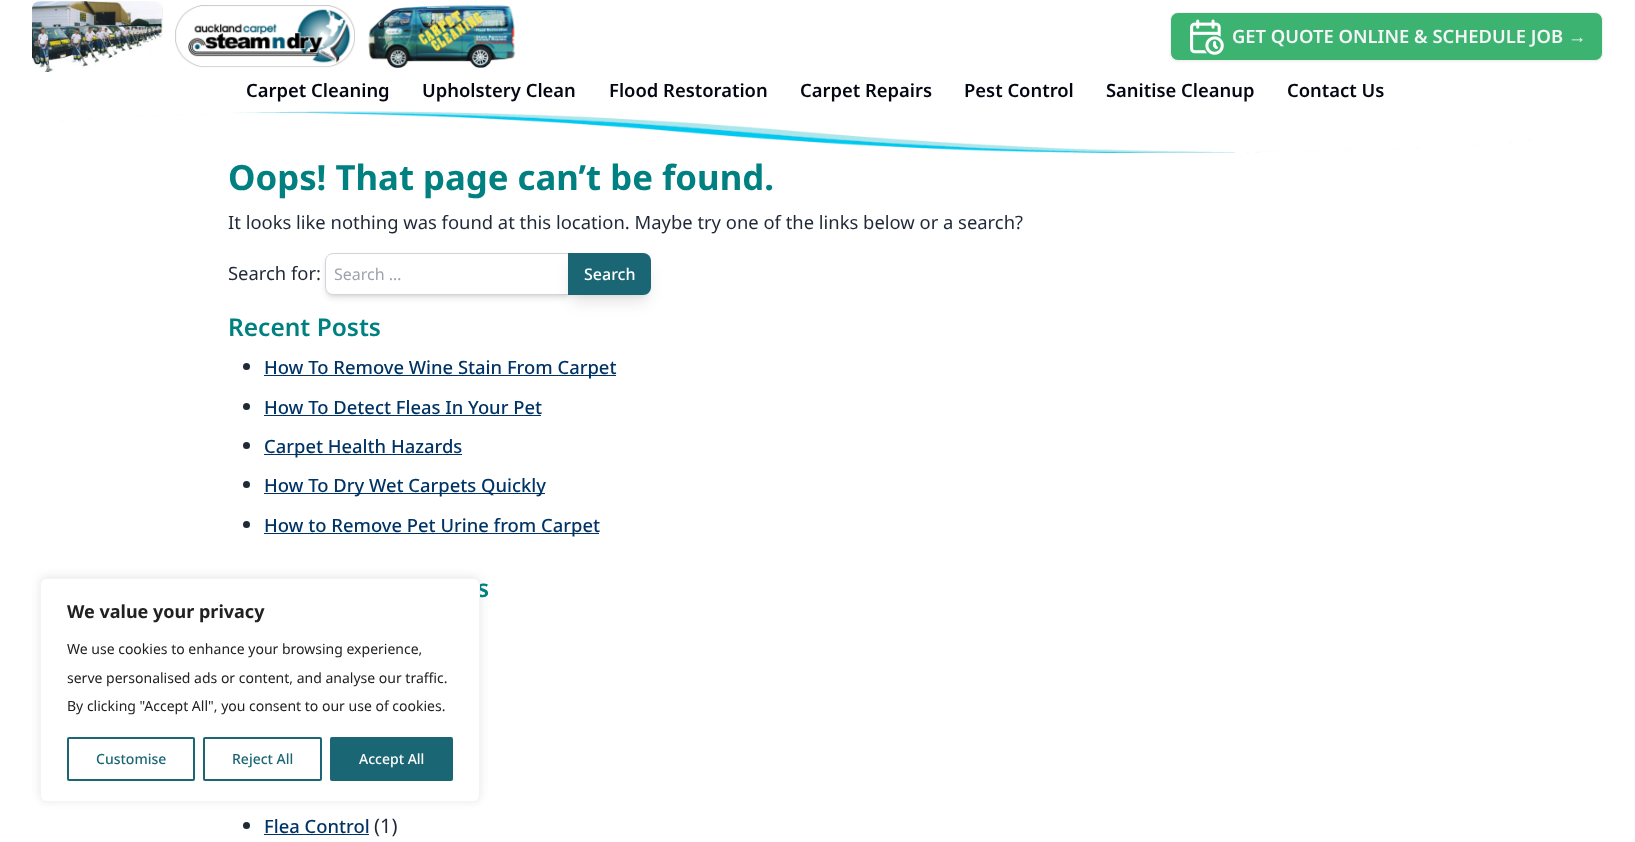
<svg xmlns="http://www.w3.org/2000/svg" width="1635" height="842">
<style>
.a{font:600 18.4px Noto Sans;fill:#f3f4f6}
.b{font:bold 18.4px Liberation Sans;fill:#f3f4f6}
.c{font:600 18.4px Noto Sans;fill:#030712}
.d{font:bold 34.75px Noto Sans;fill:#008080}
.e{font:18.4px Noto Sans;fill:#1f2937}
.f{font:16px Noto Sans;fill:#9ca3af}
.g{font:500 16px Noto Sans;fill:#fff}
.h{font:600 24.5px Noto Sans;fill:#008080}
.i{font:500 18.4px Noto Sans;fill:#036}
.j{font:20px Noto Sans;fill:#1f2937}
.k{font:bold 18px Noto Sans;fill:#212121}
.l{font:14px Noto Sans;fill:#212121}
.m{font:500 14px Noto Sans;fill:#1b6674}
.n{font:500 14px Noto Sans;fill:#fff}
</style>
<rect width="100%" height="100%" fill="#fff"/>
<image href="1.png" x="32" y="1" width="131" height="71"/>
<image href="2.png" x="175" y="5" width="180" height="63"/>
<image href="3.png" x="368" y="5" width="148" height="63"/>
<rect fill="#0000000d" filter="blur(1px)" x="1170" y="13" width="433" height="49" rx="8"/>
<rect fill="#3cb371" stroke="#f2f2f2" x="1170.5" y="12.5" width="432" height="48" rx="7.5"/>
<image href="4.png" x="1190" y="19" width="34" height="36"/>
<image href="5.png" x="5" y="111" width="1628" height="42"/>
<rect fill="#0000001a" filter="blur(2px)" x="327" y="257" width="243" height="38" rx="6"/>
<rect fill="#0000001a" filter="blur(3px)" x="326" y="258" width="245" height="40" rx="7"/>
<path fill="#fff" stroke="#d1d5db" d="M333 253.5h238.5v41h-238.5c-4 0-7.5-3.5-7.5-7.5v-26c0-4 3.5-7.5 7.5-7.5z"/>
<rect fill="#0000001a" filter="blur(3px)" x="572" y="261" width="75" height="34" rx="4"/>
<rect fill="#0000001a" filter="blur(7.5px)" x="571" y="266" width="77" height="36" rx="5"/>
<path fill="#1b6674" d="M568 253h75c4.5 0 8 3.5 8 8v26c0 4.5-3.5 8-8 8h-75z"/>
<circle fill="#1f2937" cx="246.5" cy="366.5" r="3.5"/>
<path fill="#036" d="M264 375h352v1H264z"/>
<circle fill="#1f2937" cx="246.5" cy="406.5" r="3.5"/>
<path fill="#036" d="M264 415h277v1H264z"/>
<circle fill="#1f2937" cx="246.5" cy="445.5" r="3.5"/>
<path fill="#036" d="M264 454h198v1H264z"/>
<circle fill="#1f2937" cx="246.5" cy="484.5" r="3.5"/>
<path fill="#036" d="M264 493h281v1H264z"/>
<circle fill="#1f2937" cx="246.5" cy="524.5" r="3.5"/>
<path fill="#036" d="M264 533h335v1H264z"/>
<circle fill="#1f2937" cx="246.5" cy="825.5" r="3.5"/>
<path fill="#036" d="M264 834h105v1H264z"/>
<rect fill="#acabab4d" filter="blur(5px)" x="40" y="577" width="440" height="224" rx="6"/>
<text class="a" x="1232" y="43">GET QUOTE ONLINE &amp; SCHEDULE JOB</text>
<text class="b" x="1568" y="43">→</text>
<text class="c" x="246" y="97">Carpet Cleaning</text>
<text class="c" x="422" y="97">Upholstery Clean</text>
<text class="c" x="609" y="97">Flood Restoration</text>
<text class="c" x="800" y="97">Carpet Repairs</text>
<text class="c" x="964" y="97">Pest Control</text>
<text class="c" x="1106" y="97">Sanitise Cleanup</text>
<text class="c" x="1287" y="97">Contact Us</text>
<text class="d" x="228" y="190">Oops! That page can’t be found.</text>
<text class="e" x="228" y="229">It looks like nothing was found at this location. Maybe try one of the links below or a search?</text>
<text class="e" x="228" y="280">Search for:</text>
<text class="f" x="334" y="280">Search …</text>
<text class="g" x="584" y="280">Search</text>
<text class="h" x="228" y="336">Recent Posts</text>
<text class="i" x="264" y="374">How To Remove Wine Stain From Carpet</text>
<text class="i" x="264" y="414">How To Detect Fleas In Your Pet</text>
<text class="i" x="264" y="453">Carpet Health Hazards</text>
<text class="i" x="264" y="492">How To Dry Wet Carpets Quickly</text>
<text class="i" x="264" y="532">How to Remove Pet Urine from Carpet</text>
<text class="h" x="477" y="597">s</text>
<text class="i" x="264" y="833">Flea Control</text>
<text class="j" x="374" y="833">(1)</text>
<rect fill="#fff" stroke="#f4f4f4" x="40.5" y="578.5" width="439" height="223" rx="5.5"/>
<text class="k" x="67" y="618">We value your privacy</text>
<text class="l" x="67" y="654">We use cookies to enhance your browsing experience,</text>
<text class="l" x="67" y="683">serve personalised ads or content, and analyse our traffic.</text>
<text class="l" x="67" y="711">By clicking "Accept All", you consent to our use of cookies.</text>
<rect fill="none" stroke="#1b6674" stroke-width="2" x="68" y="738" width="126" height="42" rx="1"/>
<text class="m" x="96" y="764">Customise</text>
<rect fill="none" stroke="#1b6674" stroke-width="2" x="204" y="738" width="117" height="42" rx="1"/>
<text class="m" x="232" y="764">Reject All</text>
<rect fill="#1b6674" stroke="#1b6674" stroke-width="2" x="331" y="738" width="121" height="42" rx="1"/>
<text class="n" x="359" y="764">Accept All</text>
</svg>
